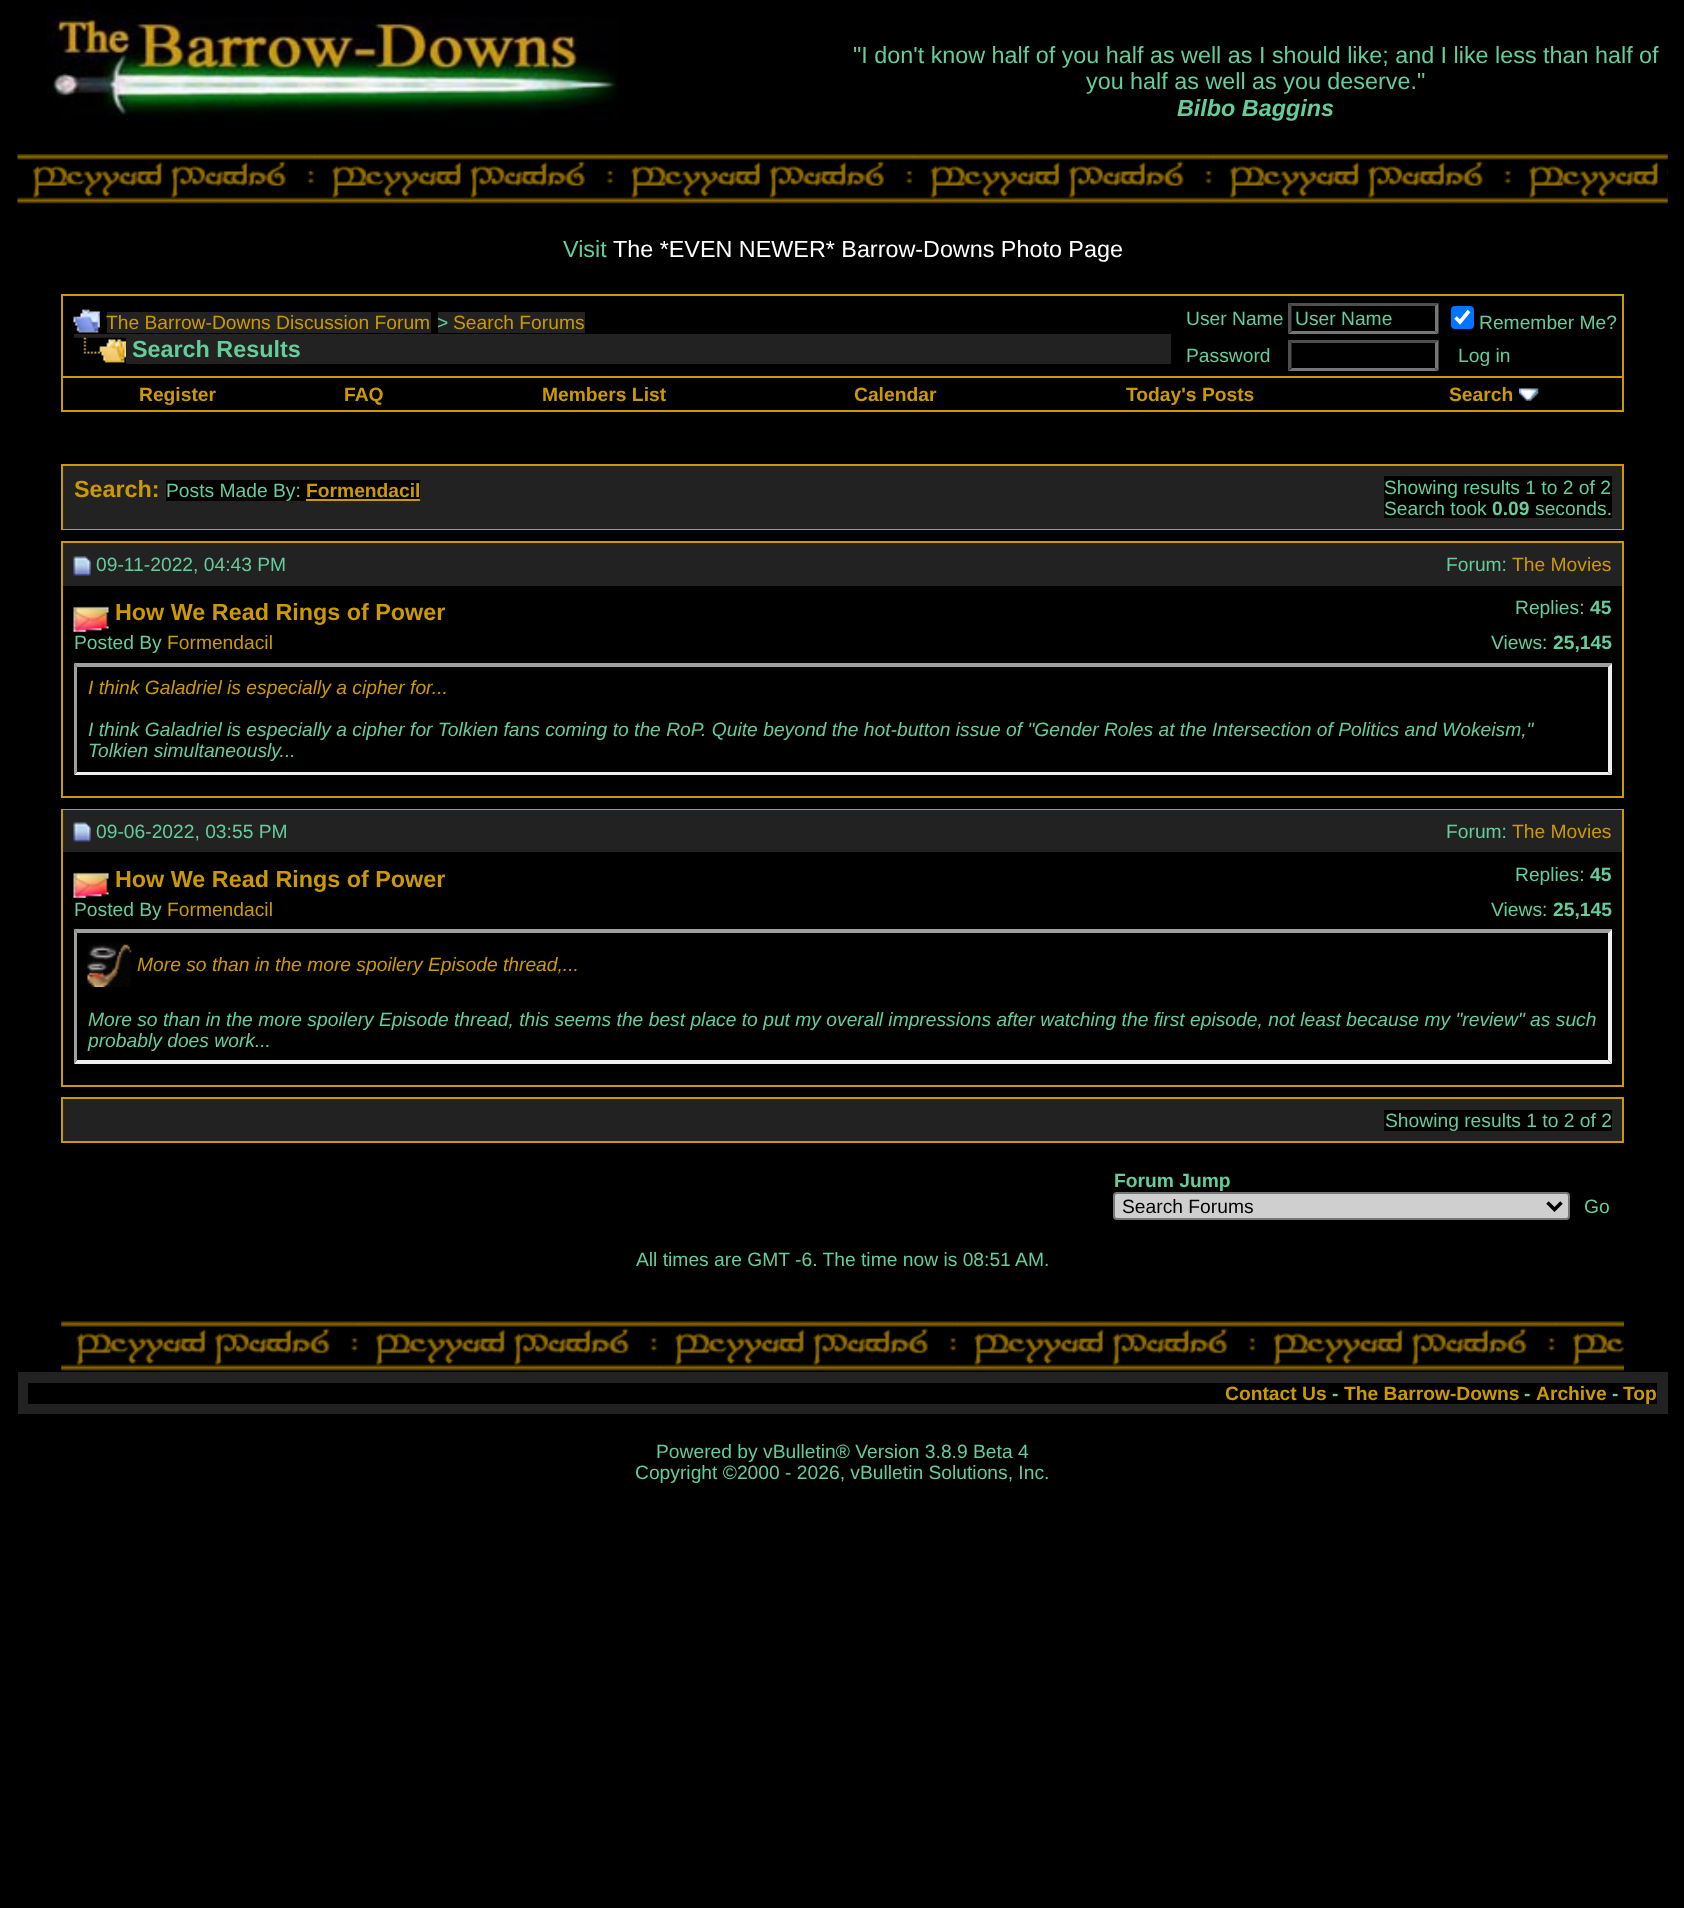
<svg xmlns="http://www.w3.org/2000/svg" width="1684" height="1908">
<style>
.a{font:23.35px Liberation Sans;fill:#6c9}
.b{font:italic bold 23.35px Liberation Sans;fill:#6c9}
.c{font:23.35px Liberation Sans;fill:#fff}
.d{font:19.25px Liberation Sans;fill:#c90}
.e{font:19.25px Liberation Sans;fill:#6c9}
.f{font:bold 23.35px Liberation Sans;fill:#6c9}
.g{font:bold 19.25px Liberation Sans;fill:#c90}
.h{font:bold 23.35px Liberation Sans;fill:#c90}
.i{font:bold 19.25px Liberation Sans;fill:#6c9}
.j{font:italic 19.25px Liberation Sans;fill:#c90}
.k{font:italic 19.25px Liberation Sans;fill:#6c9}
.l{font:19.25px Liberation Sans;fill:#000}
</style>
<rect width="100%" height="100%" fill="#000"/>
<image href="1.png" x="46" y="9" width="573" height="112"/>
<image href="2.png" x="17" y="154" width="1651" height="50"/>
<path fill="none" stroke="#c90" stroke-width="2" d="M62 295h1561v82H62z"/>
<image href="3.png" x="73" y="309" width="27" height="24"/>
<path fill="#222" d="M107 312h324v21H107z"/>
<path fill="#222" d="M438 312h147v21H438z"/>
<path fill="#222" d="M74 334h1097v30H74z"/>
<image href="4.png" x="74" y="337" width="52" height="27"/>
<path fill="#4f4f4f" d="M1288 303h150l-3 3h-143z"/>
<path fill="#767676" d="M1438.5 303v31l-3.5-3v-25z"/>
<path fill="#767676" d="M1438 334h-150l4-3h143z"/>
<path fill="#4f4f4f" d="M1288 334v-31l3.5 3v25z"/>
<rect fill="#0075ff" x="1451" y="306" width="23" height="23" rx="4"/>
<path fill="none" stroke="#fff" stroke-width="3.6" d="M1455.5 317.5l4.5 4.5l9-11"/>
<path fill="#4f4f4f" d="M1288 340h150l-3 3h-143z"/>
<path fill="#767676" d="M1438.5 339.5v31.5l-3.5-3.5v-24.5z"/>
<path fill="#767676" d="M1438 371h-150l4-3h143z"/>
<path fill="#4f4f4f" d="M1288 371v-31.5l3.5 3.5v24.5z"/>
<path fill="#c90" d="M1622 378h2v33H1622z"/>
<path fill="#c90" d="M61 410h1563v2H61z"/>
<path fill="#c90" d="M61 378h2v33H61z"/>
<image href="5.png" x="1519" y="388" width="20" height="13"/>
<path fill="none" stroke="#c90" stroke-width="2" d="M62 465h1561v64H62z"/>
<path fill="#222" d="M63 466h1559v63H63z"/>
<path fill="#000" d="M166 480h140v21H166z"/>
<path fill="#000" d="M306 480h114v19H306z"/>
<path fill="#c90" d="M306 499h114v2H306z"/>
<path fill="#000" d="M1384 476h228v42H1384z"/>
<path fill="none" stroke="#c90" stroke-width="2" d="M62 542h1561v255H62z"/>
<path fill="#222" d="M63 543h1559v43H63z"/>
<image href="6.png" x="73" y="556" width="18" height="20"/>
<image href="7.png" x="73" y="606" width="36" height="26"/>
<path fill="#9f9f9f" d="M74 663h1538l-4 4h-1531z"/>
<path fill="#eee" d="M1612 663v112l-4-3v-105z"/>
<path fill="#eee" d="M1612 775h-1538l3-3h1531z"/>
<path fill="#9f9f9f" d="M74 775v-112l3 4v105z"/>
<path fill="none" stroke="#c90" stroke-width="2" d="M62 810h1561v276H62z"/>
<path fill="#222" d="M63 810h1559v42H63z"/>
<image href="6.png" x="73" y="822" width="18" height="20"/>
<image href="7.png" x="73" y="872" width="36" height="26"/>
<path fill="#9f9f9f" d="M74 929h1538l-4 4h-1531z"/>
<path fill="#eee" d="M1612 929v135l-4-4v-127z"/>
<path fill="#eee" d="M1612 1064h-1538l3-4h1531z"/>
<path fill="#9f9f9f" d="M74 1064v-135l3 4v127z"/>
<image href="8.png" x="87" y="943" width="45" height="44"/>
<path fill="none" stroke="#c90" stroke-width="2" d="M62 1098h1561v44H62z"/>
<path fill="#222" d="M63 1099h1559v42H63z"/>
<path fill="#000" d="M1384 1110h228v21H1384z"/>
<rect fill="#cfcfcf" stroke="#767676" stroke-width="2" x="1114" y="1193" width="455" height="26" rx="3"/>
<path fill="none" stroke="#000" stroke-width="3.5" d="M1547.5 1202.5l7 7l7-7"/>
<image href="9.png" x="61" y="1321" width="1563" height="50"/>
<path fill="#222" d="M18 1372h1650v42H18z"/>
<path fill="#000" d="M28 1383h1629v21H28z"/>
<text class="a" x="853" y="63">"I don't know half of you half as well as I should like; and I like less than half of</text>
<text class="a" x="1086" y="89">you half as well as you deserve."</text>
<text class="b" x="1177" y="116">Bilbo Baggins</text>
<text class="a" x="563" y="257">Visit</text>
<text class="c" x="613" y="257">The *EVEN NEWER* Barrow-Downs Photo Page</text>
<text class="d" x="106" y="329">The Barrow-Downs Discussion Forum</text>
<text class="e" x="437" y="329">&gt;</text>
<text class="d" x="453" y="329">Search Forums</text>
<text class="f" x="132" y="357">Search Results</text>
<text class="e" x="1186" y="325">User Name</text>
<text class="e" x="1295" y="325">User Name</text>
<text class="e" x="1479" y="329">Remember Me?</text>
<text class="e" x="1186" y="362">Password</text>
<text class="e" x="1458" y="362">Log in</text>
<text class="g" x="139" y="401">Register</text>
<text class="g" x="344" y="401">FAQ</text>
<text class="g" x="542" y="401">Members List</text>
<text class="g" x="854" y="401">Calendar</text>
<text class="g" x="1126" y="401">Today's Posts</text>
<text class="g" x="1449" y="401">Search</text>
<text class="h" x="74" y="497">Search:</text>
<text class="e" x="166" y="497">Posts Made By:</text>
<text class="g" x="306" y="497">Formendacil</text>
<text class="e" x="1384" y="494">Showing results 1 to 2 of 2</text>
<text class="e" x="1384" y="515">Search took</text>
<text class="i" x="1492" y="515">0.09</text>
<text class="e" x="1535" y="515">seconds.</text>
<text class="e" x="96" y="571">09-11-2022, 04:43 PM</text>
<text class="e" x="1446" y="571">Forum:</text>
<text class="d" x="1512" y="571">The Movies</text>
<text class="h" x="115" y="620">How We Read Rings of Power</text>
<text class="e" x="1515" y="614">Replies:</text>
<text class="i" x="1590" y="614">45</text>
<text class="e" x="74" y="649">Posted By</text>
<text class="d" x="167" y="649">Formendacil</text>
<text class="e" x="1491" y="649">Views:</text>
<text class="i" x="1553" y="649">25,145</text>
<text class="j" x="88" y="694">I think Galadriel is especially a cipher for...</text>
<text class="k" x="88" y="736">I think Galadriel is especially a cipher for Tolkien fans coming to the RoP. Quite beyond the hot-button issue of "Gender Roles at the Intersection of Politics and Wokeism,"</text>
<text class="k" x="88" y="757">Tolkien simultaneously...</text>
<text class="e" x="96" y="838">09-06-2022, 03:55 PM</text>
<text class="e" x="1446" y="838">Forum:</text>
<text class="d" x="1512" y="838">The Movies</text>
<text class="h" x="115" y="887">How We Read Rings of Power</text>
<text class="e" x="1515" y="881">Replies:</text>
<text class="i" x="1590" y="881">45</text>
<text class="e" x="74" y="916">Posted By</text>
<text class="d" x="167" y="916">Formendacil</text>
<text class="e" x="1491" y="916">Views:</text>
<text class="i" x="1553" y="916">25,145</text>
<text class="j" x="137" y="971">More so than in the more spoilery Episode thread,...</text>
<text class="k" x="88" y="1026">More so than in the more spoilery Episode thread, this seems the best place to put my overall impressions after watching the first episode, not least because my "review" as such</text>
<text class="k" x="88" y="1047">probably does work...</text>
<text class="e" x="1385" y="1127">Showing results 1 to 2 of 2</text>
<text class="i" x="1114" y="1187">Forum Jump</text>
<text class="l" x="1122" y="1213">Search Forums</text>
<text class="e" x="1584" y="1213">Go</text>
<text class="e" x="636" y="1266">All times are GMT -6. The time now is 08:51 AM.</text>
<text class="g" x="1225" y="1400">Contact Us</text>
<text class="i" x="1332" y="1400">-</text>
<text class="g" x="1344" y="1400">The Barrow-Downs</text>
<text class="i" x="1524" y="1400">-</text>
<text class="g" x="1536" y="1400">Archive</text>
<text class="i" x="1612" y="1400">-</text>
<text class="g" x="1623" y="1400">Top</text>
<text class="e" x="656" y="1458">Powered by vBulletin® Version 3.8.9 Beta 4</text>
<text class="e" x="635" y="1479">Copyright ©2000 - 2026, vBulletin Solutions, Inc.</text>
</svg>
